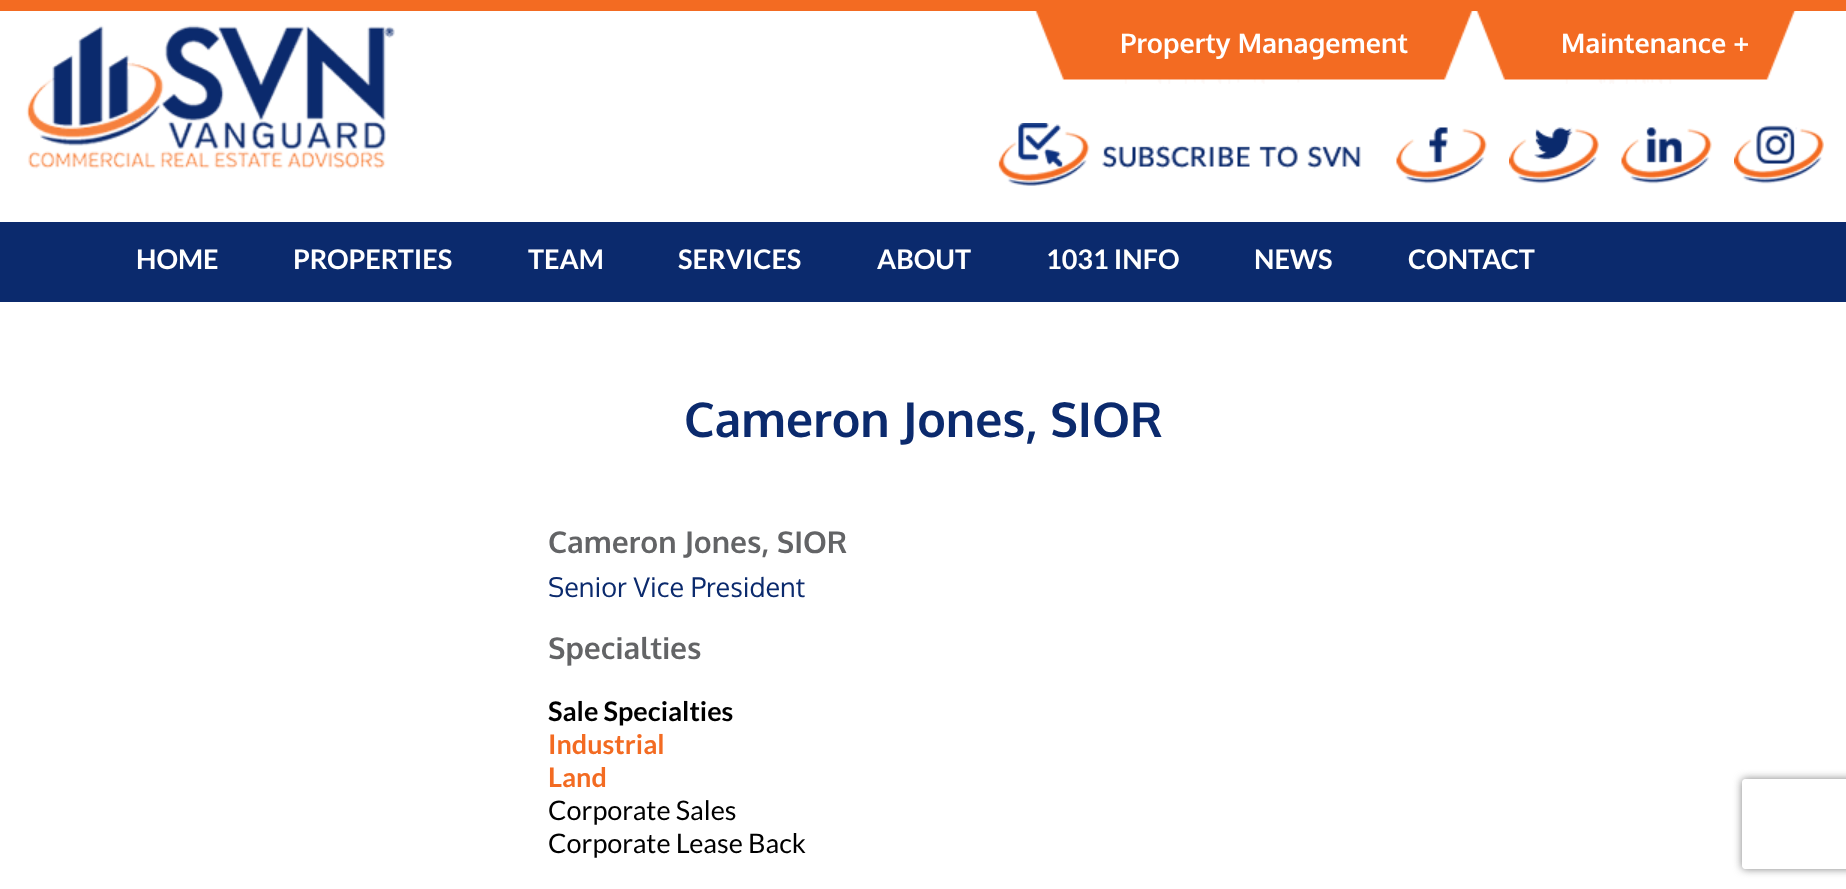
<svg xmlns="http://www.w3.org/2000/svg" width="1846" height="889">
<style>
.a{font:bold 27px Oxygen;fill:#fff}
.b{font:bold 27px Lato;fill:#fff}
.c{font:bold 48px Oxygen;fill:#0b2a6d}
.d{font:bold 30px Oxygen;fill:#636466}
.e{font:27px Oxygen;fill:#0b2a6d}
.f{font:bold 27px Lato;fill:#000}
.g{font:bold 27px Lato;fill:#f36b22}
.h{font:27px Lato;fill:#000}
</style>
<defs>
<clipPath id="clip1"><path d="M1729 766h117v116h-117zm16 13h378c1.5 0 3 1.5 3 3v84c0 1.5-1.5 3-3 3h-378c-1.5 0-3-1.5-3-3v-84c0-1.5 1.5-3 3-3z" clip-rule="evenodd"/></clipPath>
</defs>
<rect width="100%" height="100%" fill="#fff"/>
<path fill="#f36b22" d="M0 0h1846v11H0z"/>
<image href="1.png" x="26" y="25" width="369" height="144"/>
<image href="2.png" x="1035" y="11" width="439" height="73"/>
<image href="3.png" x="1476" y="11" width="320" height="73"/>
<image href="4.png" x="998" y="123" width="363" height="63"/>
<image href="5.png" x="1396" y="127" width="91" height="57"/>
<image href="6.png" x="1509" y="127" width="90" height="57"/>
<image href="7.png" x="1621" y="127" width="91" height="57"/>
<image href="8.png" x="1734" y="125" width="90" height="59"/>
<path fill="#0b2a6d" d="M0 222h1846v80H0z"/>
<g clip-path="url(#clip1)">
<rect fill="#808080" filter="blur(4px)" x="1742" y="779" width="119" height="90" rx="3"/>
</g>
<text class="a" x="1120" y="53">Property Management</text>
<text class="a" x="1561" y="53">Maintenance +</text>
<text class="b" x="136" y="269">HOME</text>
<text class="b" x="293" y="269">PROPERTIES</text>
<text class="b" x="528" y="269">TEAM</text>
<text class="b" x="678" y="269">SERVICES</text>
<text class="b" x="877" y="269">ABOUT</text>
<text class="b" x="1046" y="269">1031 INFO</text>
<text class="b" x="1254" y="269">NEWS</text>
<text class="b" x="1408" y="269">CONTACT</text>
<text class="c" x="684" y="437">Cameron Jones, SIOR</text>
<text class="d" x="548" y="553">Cameron Jones, SIOR</text>
<text class="e" x="548" y="597">Senior Vice President</text>
<text class="d" x="548" y="659">Specialties</text>
<text class="f" x="548" y="721">Sale Specialties</text>
<text class="g" x="548" y="754">Industrial</text>
<text class="g" x="548" y="787">Land</text>
<text class="h" x="548" y="820">Corporate Sales</text>
<text class="h" x="548" y="853">Corporate Lease Back</text>
</svg>
